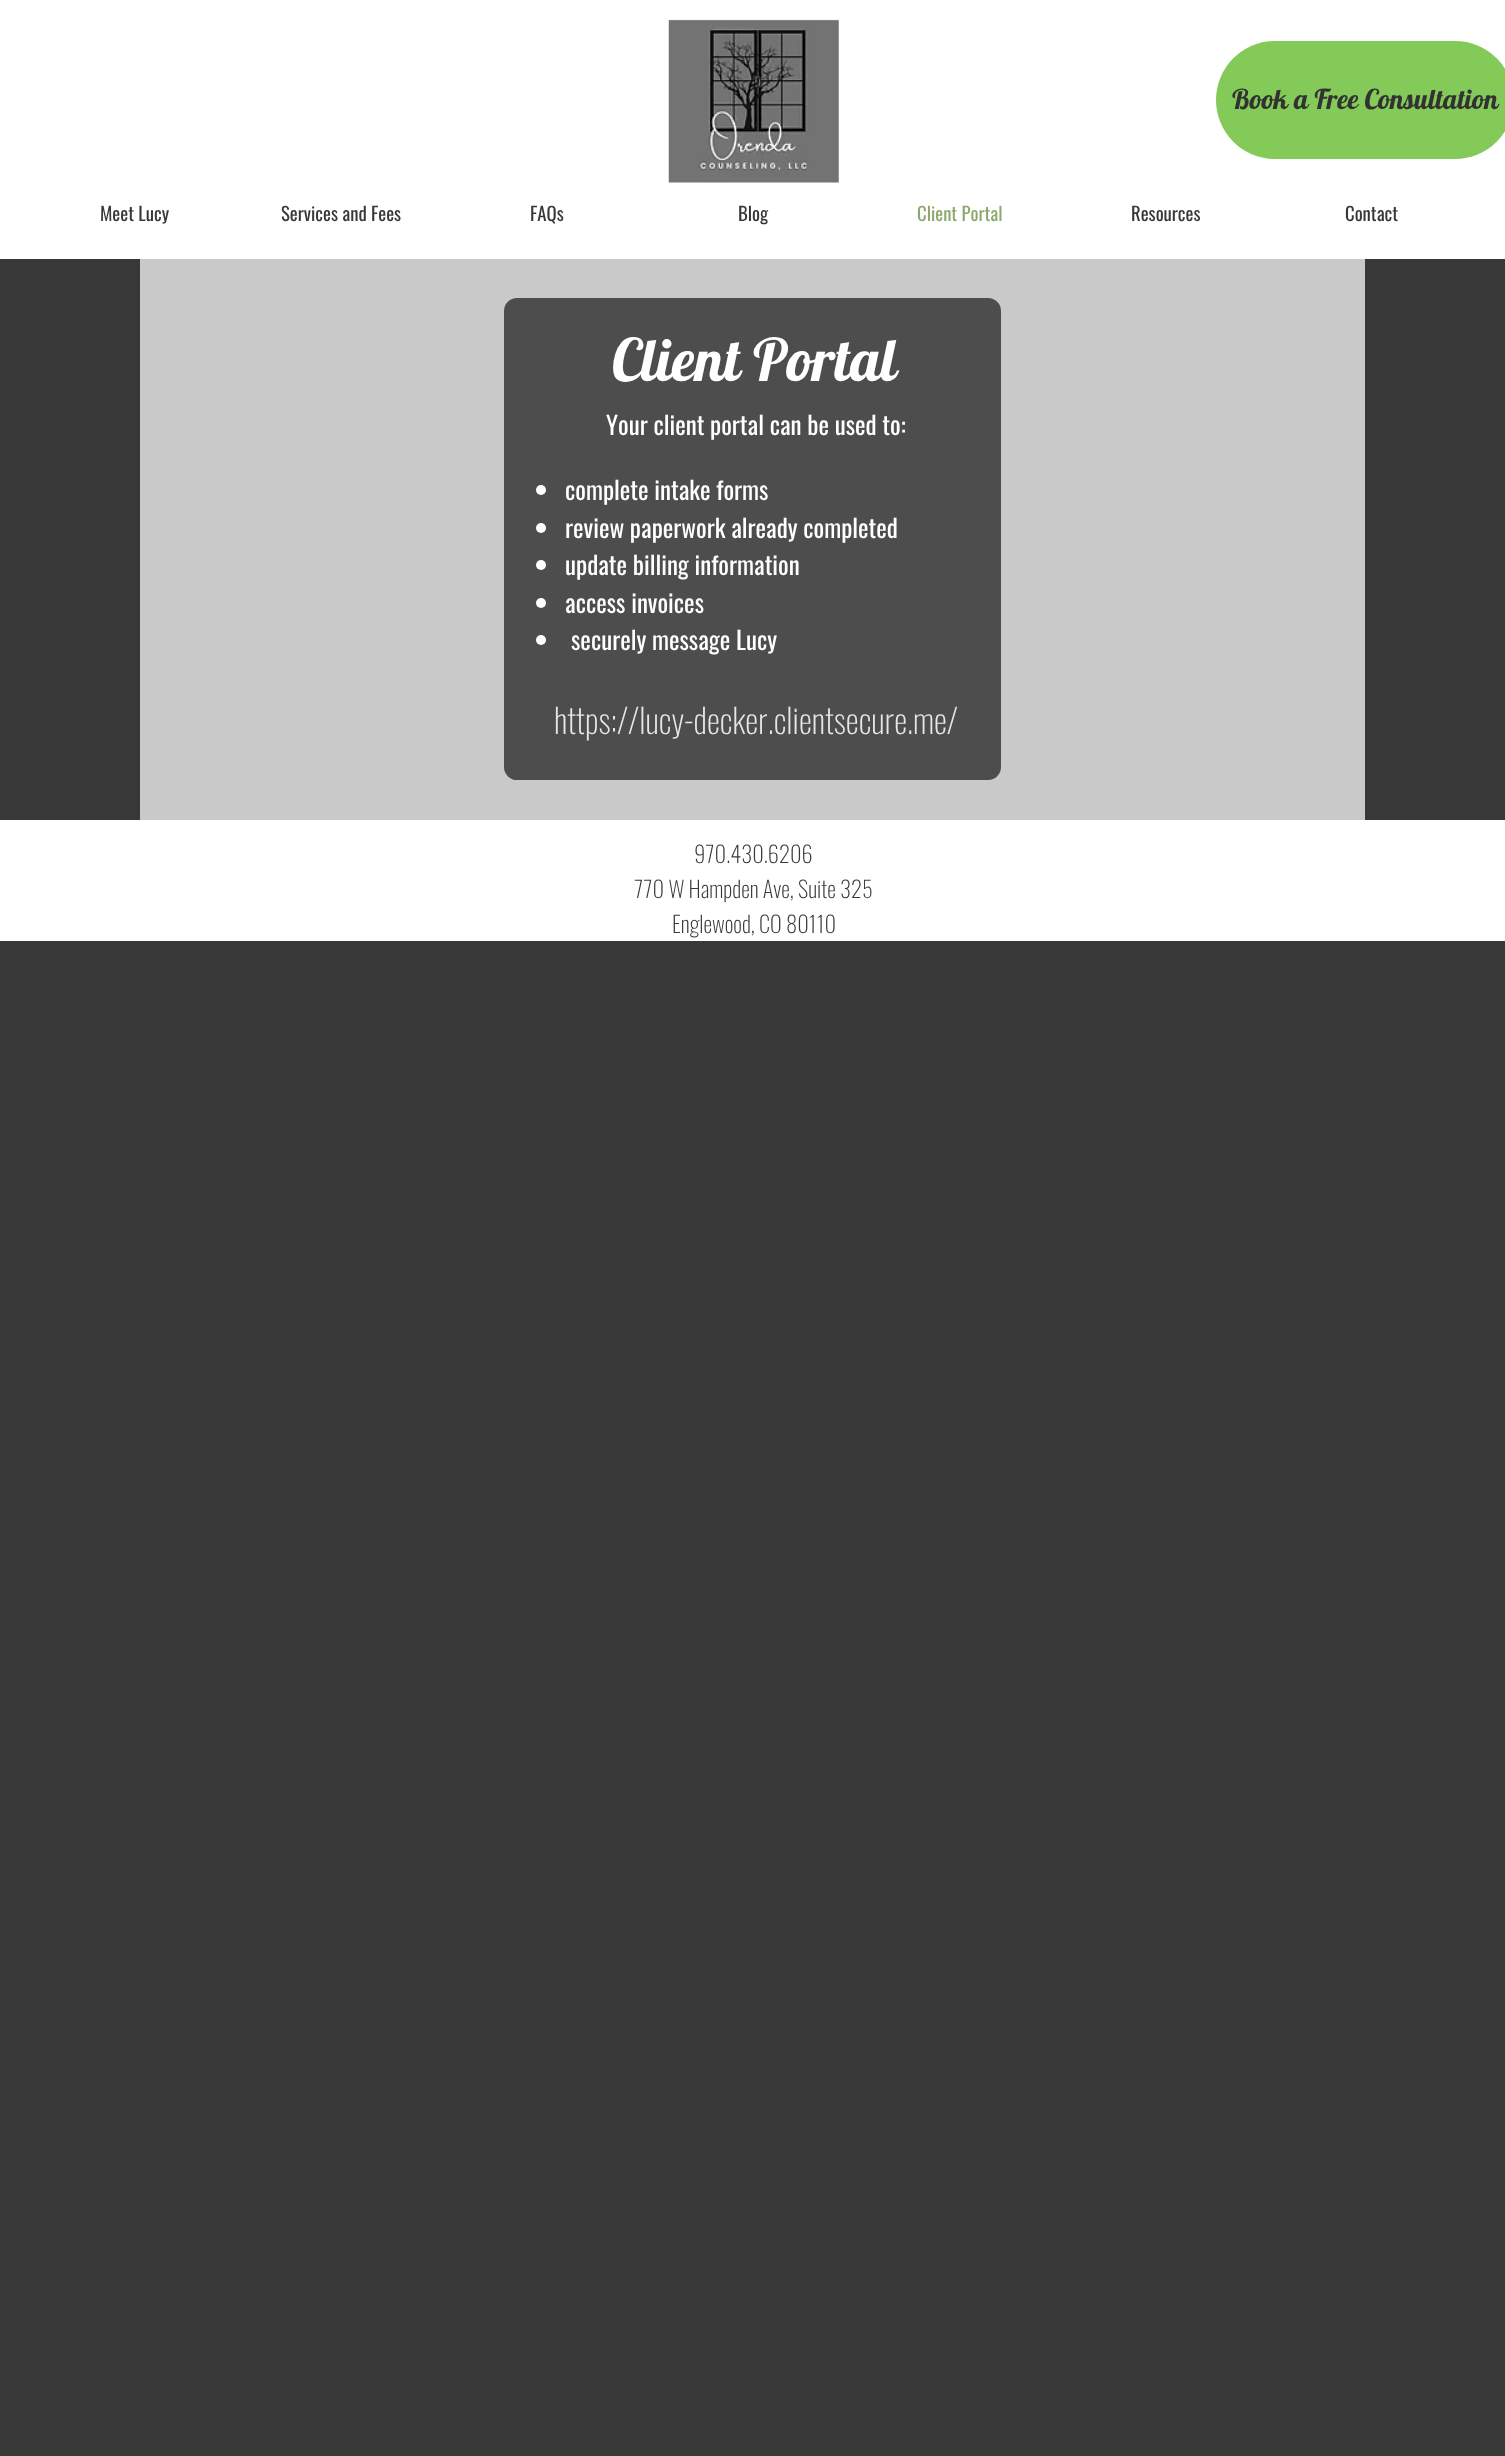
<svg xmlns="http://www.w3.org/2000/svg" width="1505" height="2456">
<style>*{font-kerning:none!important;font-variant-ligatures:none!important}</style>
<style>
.a{font:27.5px Lobster;fill:#323232}
.b{font:18.75px Oswald;fill:#383838}
.c{font:18.75px Oswald;fill:#8da86d}
.d{font:58.75px Lobster;fill:#fff}
.e{font:25px Oswald;fill:#fff}
.f{font:200 33.75px Oswald;fill:#e8e6e6}
.g{font:200 22.5px Oswald;fill:#383838}
</style>
<rect width="100%" height="100%" fill="#383838"/>
<path fill="#fff" d="M0 0h1505v259H0z"/>
<image href="1.png" x="668" y="19" width="171" height="164"/>
<rect fill="#84ca58" x="1216" y="41" width="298" height="118" rx="59"/>
<path fill="#c9c9c9" d="M140 259h1225v561H140z"/>
<rect fill="#4d4d4d" x="504" y="298" width="497" height="482" rx="13"/>
<circle fill="#fff" cx="541" cy="490" r="5"/>
<circle fill="#fff" cx="541" cy="528" r="5"/>
<circle fill="#fff" cx="541" cy="565" r="5"/>
<circle fill="#fff" cx="541" cy="603" r="5"/>
<circle fill="#fff" cx="541" cy="640" r="5"/>
<path fill="#fff" d="M0 820h1505v121H0z"/>
<text class="a" x="1232" y="109">Book a Free Consultation</text>
<text class="b" x="100" y="221">Meet Lucy</text>
<text class="b" x="281" y="221">Services and Fees</text>
<text class="b" x="530" y="221">FAQs</text>
<text class="b" x="738" y="221">Blog</text>
<text class="c" x="917" y="221">Client Portal</text>
<text class="b" x="1131" y="221">Resources</text>
<text class="b" x="1345" y="221">Contact</text>
<text class="d" x="612" y="381">Client Portal</text>
<text class="e" x="606" y="435">Your client portal can be used to:</text>
<text class="e" x="565" y="500">complete intake forms</text>
<text class="e" x="565" y="538">review paperwork already completed</text>
<text class="e" x="565" y="575">update billing information</text>
<text class="e" x="565" y="613">access invoices</text>
<text class="e" x="571" y="650">securely message Lucy</text>
<text class="f" x="554" y="734">https://lucy-decker.clientsecure.me/</text>
<text class="g" x="694" y="863">970.430.6206</text>
<text class="g" x="634" y="898">770 W Hampden Ave, Suite 325</text>
<text class="g" x="672" y="933">Englewood, CO 80110</text>
</svg>
